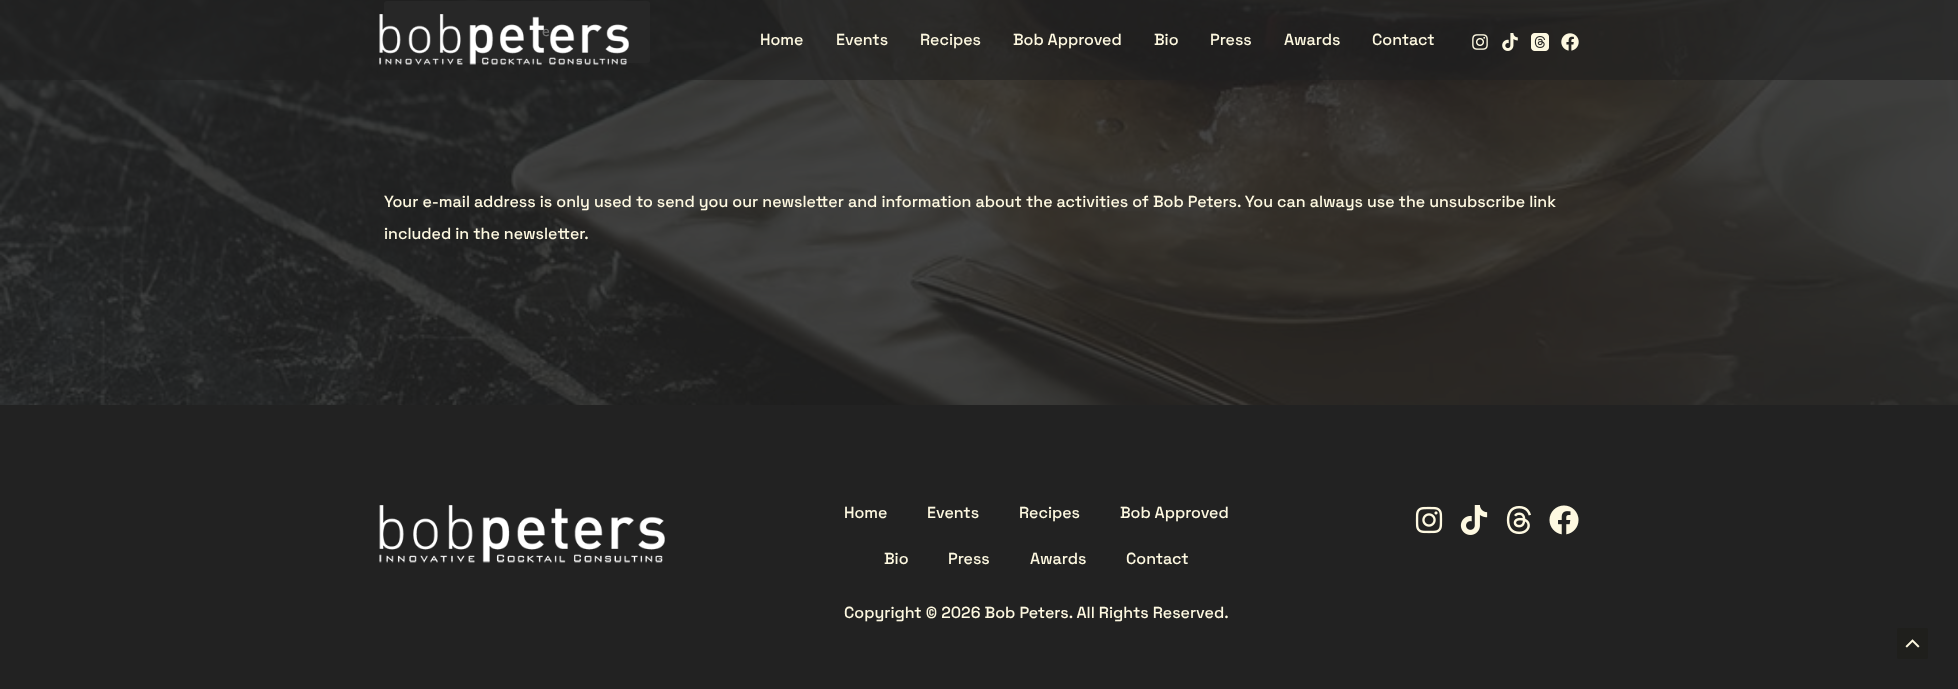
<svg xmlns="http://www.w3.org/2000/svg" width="1958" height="689">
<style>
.a{font:200 14px Mulish;fill:#fff}
.b{font:500 16px Space Grotesk;fill:#fef9e1}
</style>
<rect width="100%" height="100%" fill="#222"/>
<image href="1.png" x="0" y="0" width="1958" height="405"/>
<rect fill="#333" x="384" y="1" width="266" height="62" rx="3"/>
<image href="7.png" x="379" y="505" width="286" height="58"/>
<image href="8.png" x="1415" y="506" width="28" height="28"/>
<image href="9.png" x="1460" y="505" width="28" height="30"/>
<image href="10.png" x="1506" y="505" width="25" height="30"/>
<image href="11.png" x="1549" y="505" width="30" height="30"/>
<rect fill="#1f1f1c" x="1897" y="628" width="31" height="31" rx="2"/>
<image href="12.png" x="1905" y="639" width="15" height="9"/>
<text class="a" x="542" y="36">e</text>
<text class="b" x="384" y="207">Your e-mail address is only used to send you our newsletter and information about the activities of Bob Peters. You can always use the unsubscribe link</text>
<text class="b" x="384" y="239">included in the newsletter.</text>
<path fill="#2121219e" d="M0 0h1958v80H0z"/>
<image href="2.png" x="379" y="14" width="250" height="51"/>
<text class="b" x="760" y="45">Home</text>
<text class="b" x="836" y="45">Events</text>
<text class="b" x="920" y="45">Recipes</text>
<text class="b" x="1013" y="45">Bob Approved</text>
<text class="b" x="1154" y="45">Bio</text>
<text class="b" x="1210" y="45">Press</text>
<text class="b" x="1284" y="45">Awards</text>
<text class="b" x="1372" y="45">Contact</text>
<image href="3.png" x="1472" y="34" width="16" height="16"/>
<image href="4.png" x="1502" y="33" width="16" height="18"/>
<image href="5.png" x="1531" y="33" width="18" height="18"/>
<image href="6.png" x="1561" y="33" width="18" height="18"/>
<text class="b" x="844" y="518">Home</text>
<text class="b" x="927" y="518">Events</text>
<text class="b" x="1019" y="518">Recipes</text>
<text class="b" x="1120" y="518">Bob Approved</text>
<text class="b" x="884" y="564">Bio</text>
<text class="b" x="948" y="564">Press</text>
<text class="b" x="1030" y="564">Awards</text>
<text class="b" x="1126" y="564">Contact</text>
<text class="b" x="844" y="618">Copyright © 2026 Bob Peters. All Rights Reserved.</text>
</svg>
